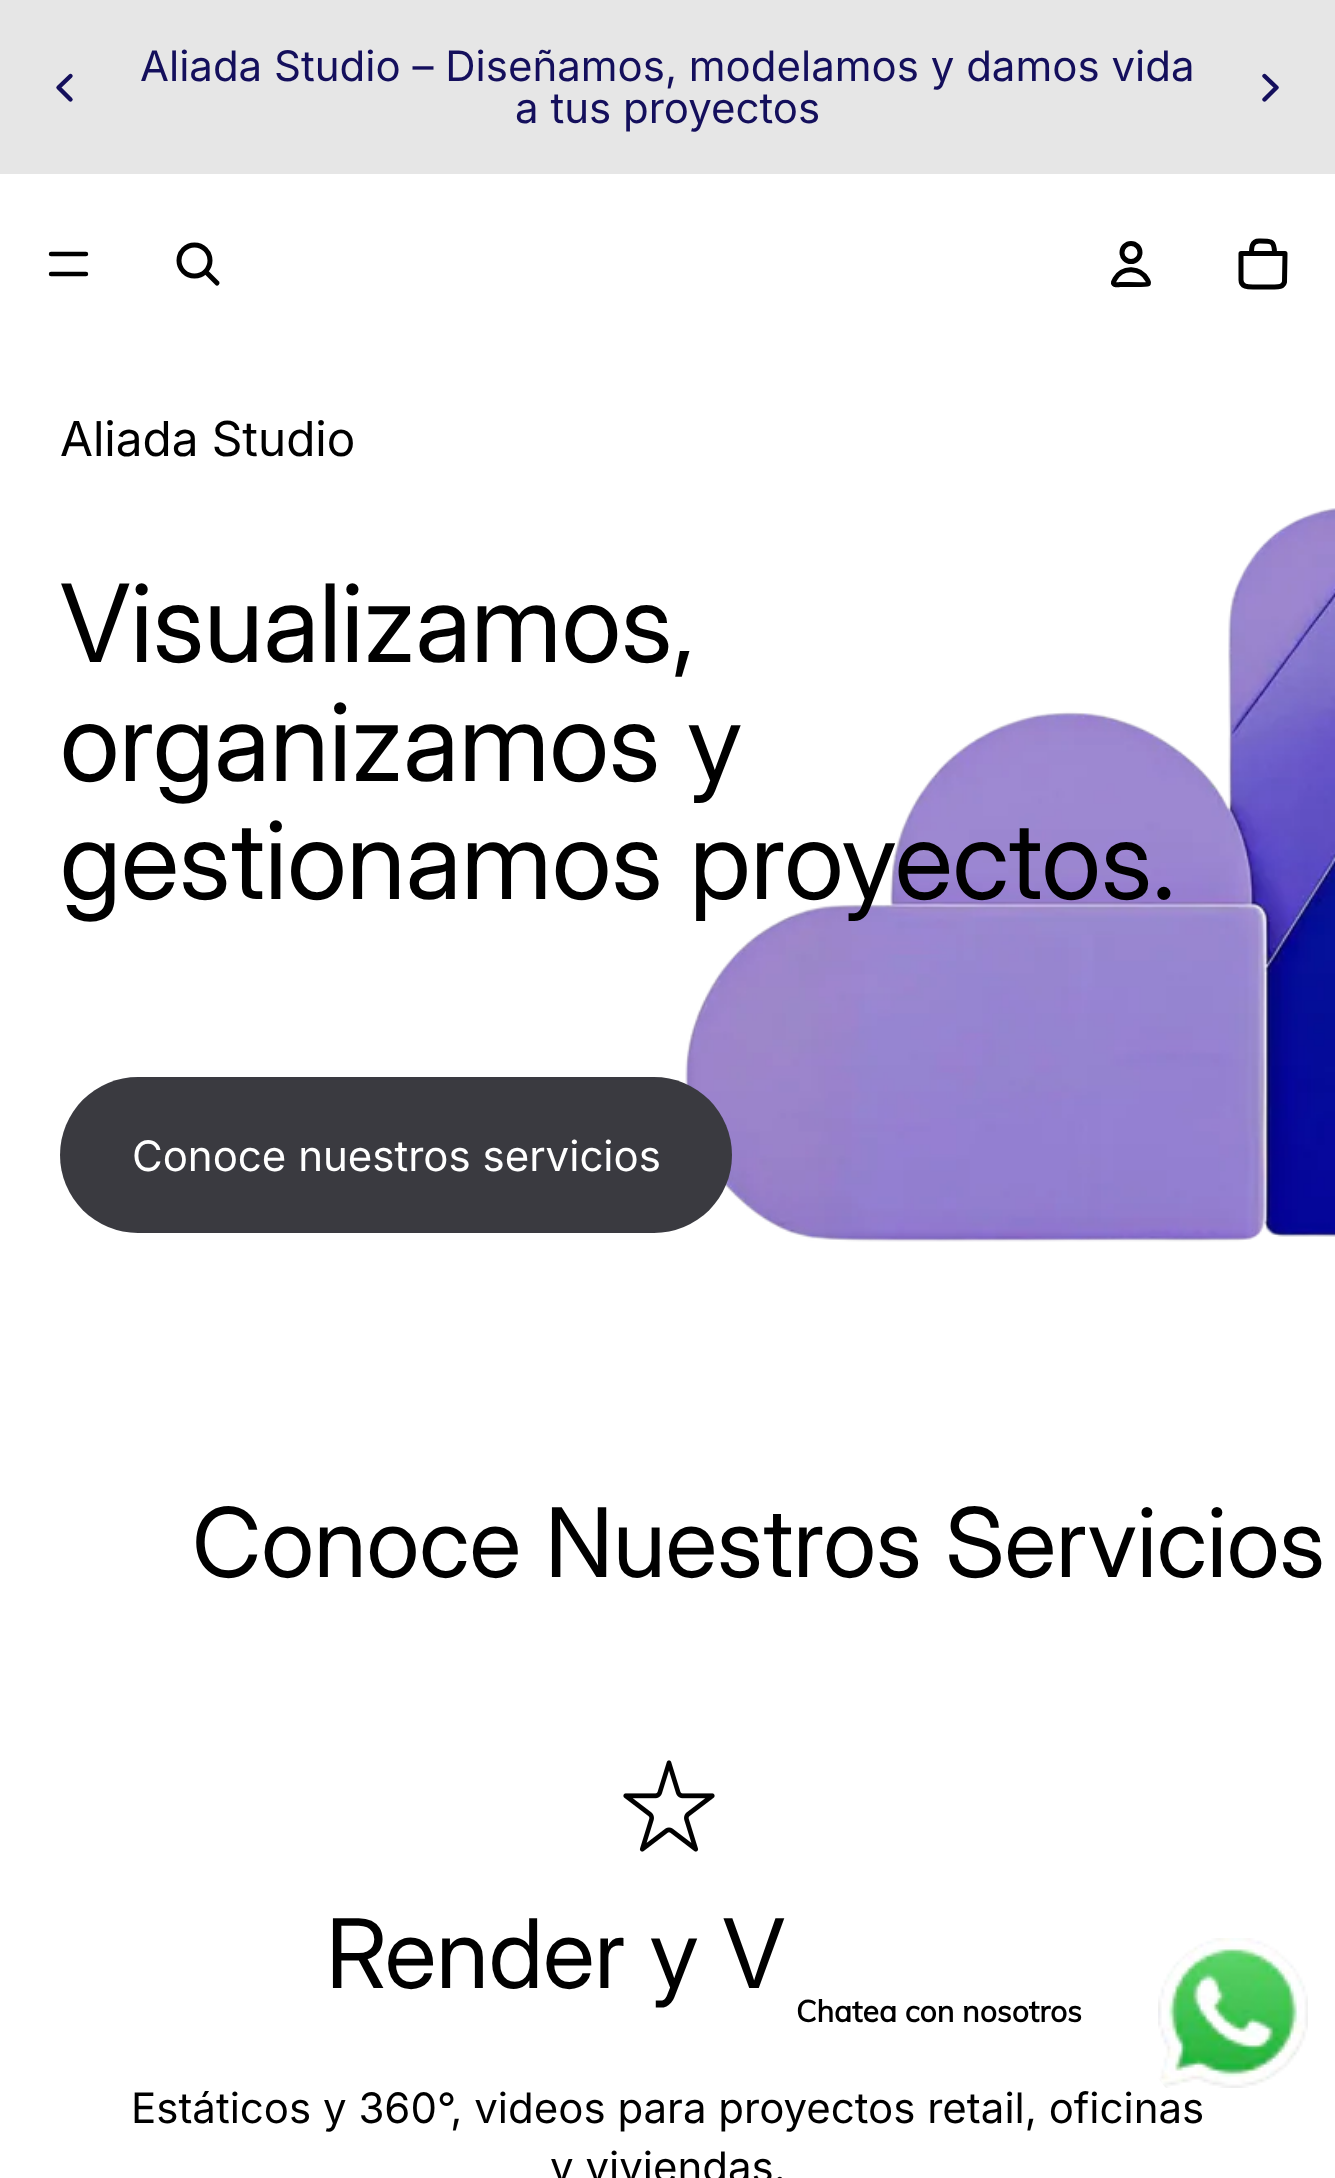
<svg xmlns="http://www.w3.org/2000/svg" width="1335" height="2178">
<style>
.a{font:42px Inter;fill:#140f5c}
.b{font:48px 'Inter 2';fill:#000}
.c{font:108px 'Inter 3';fill:#000}
.d{font:42px Inter;fill:#fff}
.e{font:96px 'Inter 3';fill:#000}
.f{font:42px Inter;fill:#000}
.g{font:bold 30px Muli;fill:#000}
</style>
<rect width="100%" height="100%" fill="#fff"/>
<path fill="#e6e6e6" d="M0 0h1335v174H0z"/>
<path fill="none" stroke="#140f5c" stroke-width="4.4" stroke-linecap="round" stroke-linejoin="round" d="M70.5 76l-12 11.5l12 12"/>
<path fill="none" stroke="#140f5c" stroke-width="4.4" stroke-linecap="round" stroke-linejoin="round" d="M1264.5 76l12 11.5l-12 12"/>
<path fill="none" stroke="#000" stroke-width="4.4" stroke-linecap="round" d="M51 254h35m-35 20h35"/>
<circle fill="none" stroke="#000" stroke-width="5" cx="194.5" cy="260.5" r="15.5"/>
<path fill="none" stroke="#000" stroke-width="5" stroke-linecap="round" stroke-linejoin="round" d="M206 272l11 11"/>
<circle fill="none" stroke="#000" stroke-width="5" cx="1131" cy="252.5" r="9"/>
<path fill="none" stroke="#000" stroke-width="5" stroke-linecap="round" stroke-linejoin="round" d="M1115 279l-1.5 3c-1 4 6.5 2.5 7 2.5h5.5c2.5 0 20.5 .5 22-.5l.5-.5c.5-1-.5-2.5-1-3.5c-7-13-25-14-32.5-1"/>
<path fill="none" stroke="#000" stroke-width="5" stroke-linecap="round" stroke-linejoin="round" d="M1241 253.5h44l-.5 28.5c-1.5 5.5-7 5-11.5 5h-20c-5 0-12 0-12-7zm18-12.5c12.5 0 15.5-.5 15.5 12.5h-23c0-5.5 0-12.5 7.5-12.5"/>
<image href="1.png" x="685" y="508" width="650" height="734"/>
<rect fill="#3a3a40" x="60" y="1077" width="672" height="156" rx="78"/>
<image href="2.png" x="623" y="1760" width="92" height="92"/>
<image href="3.png" x="1158" y="1938" width="150" height="150"/>
<text class="a" x="140" y="81">Aliada Studio – Diseñamos, modelamos y damos vida</text>
<text class="a" x="515" y="123">a tus proyectos</text>
<text class="b" x="60" y="456">Aliada Studio</text>
<text class="c" x="60" y="662">Visualizamos,</text>
<text class="c" x="60" y="781">organizamos y</text>
<text class="c" x="60" y="899">gestionamos proyectos.</text>
<text class="d" x="132" y="1171">Conoce nuestros servicios</text>
<text class="e" x="192" y="1577">Conoce Nuestros Servicios</text>
<text class="e" x="326" y="1988">Render y V</text>
<text class="f" x="131" y="2123">Estáticos y 360°, videos para proyectos retail, oficinas</text>
<text class="f" x="550" y="2182">y viviendas.</text>
<text class="g" x="796" y="2022">Chatea con nosotros</text>
</svg>
